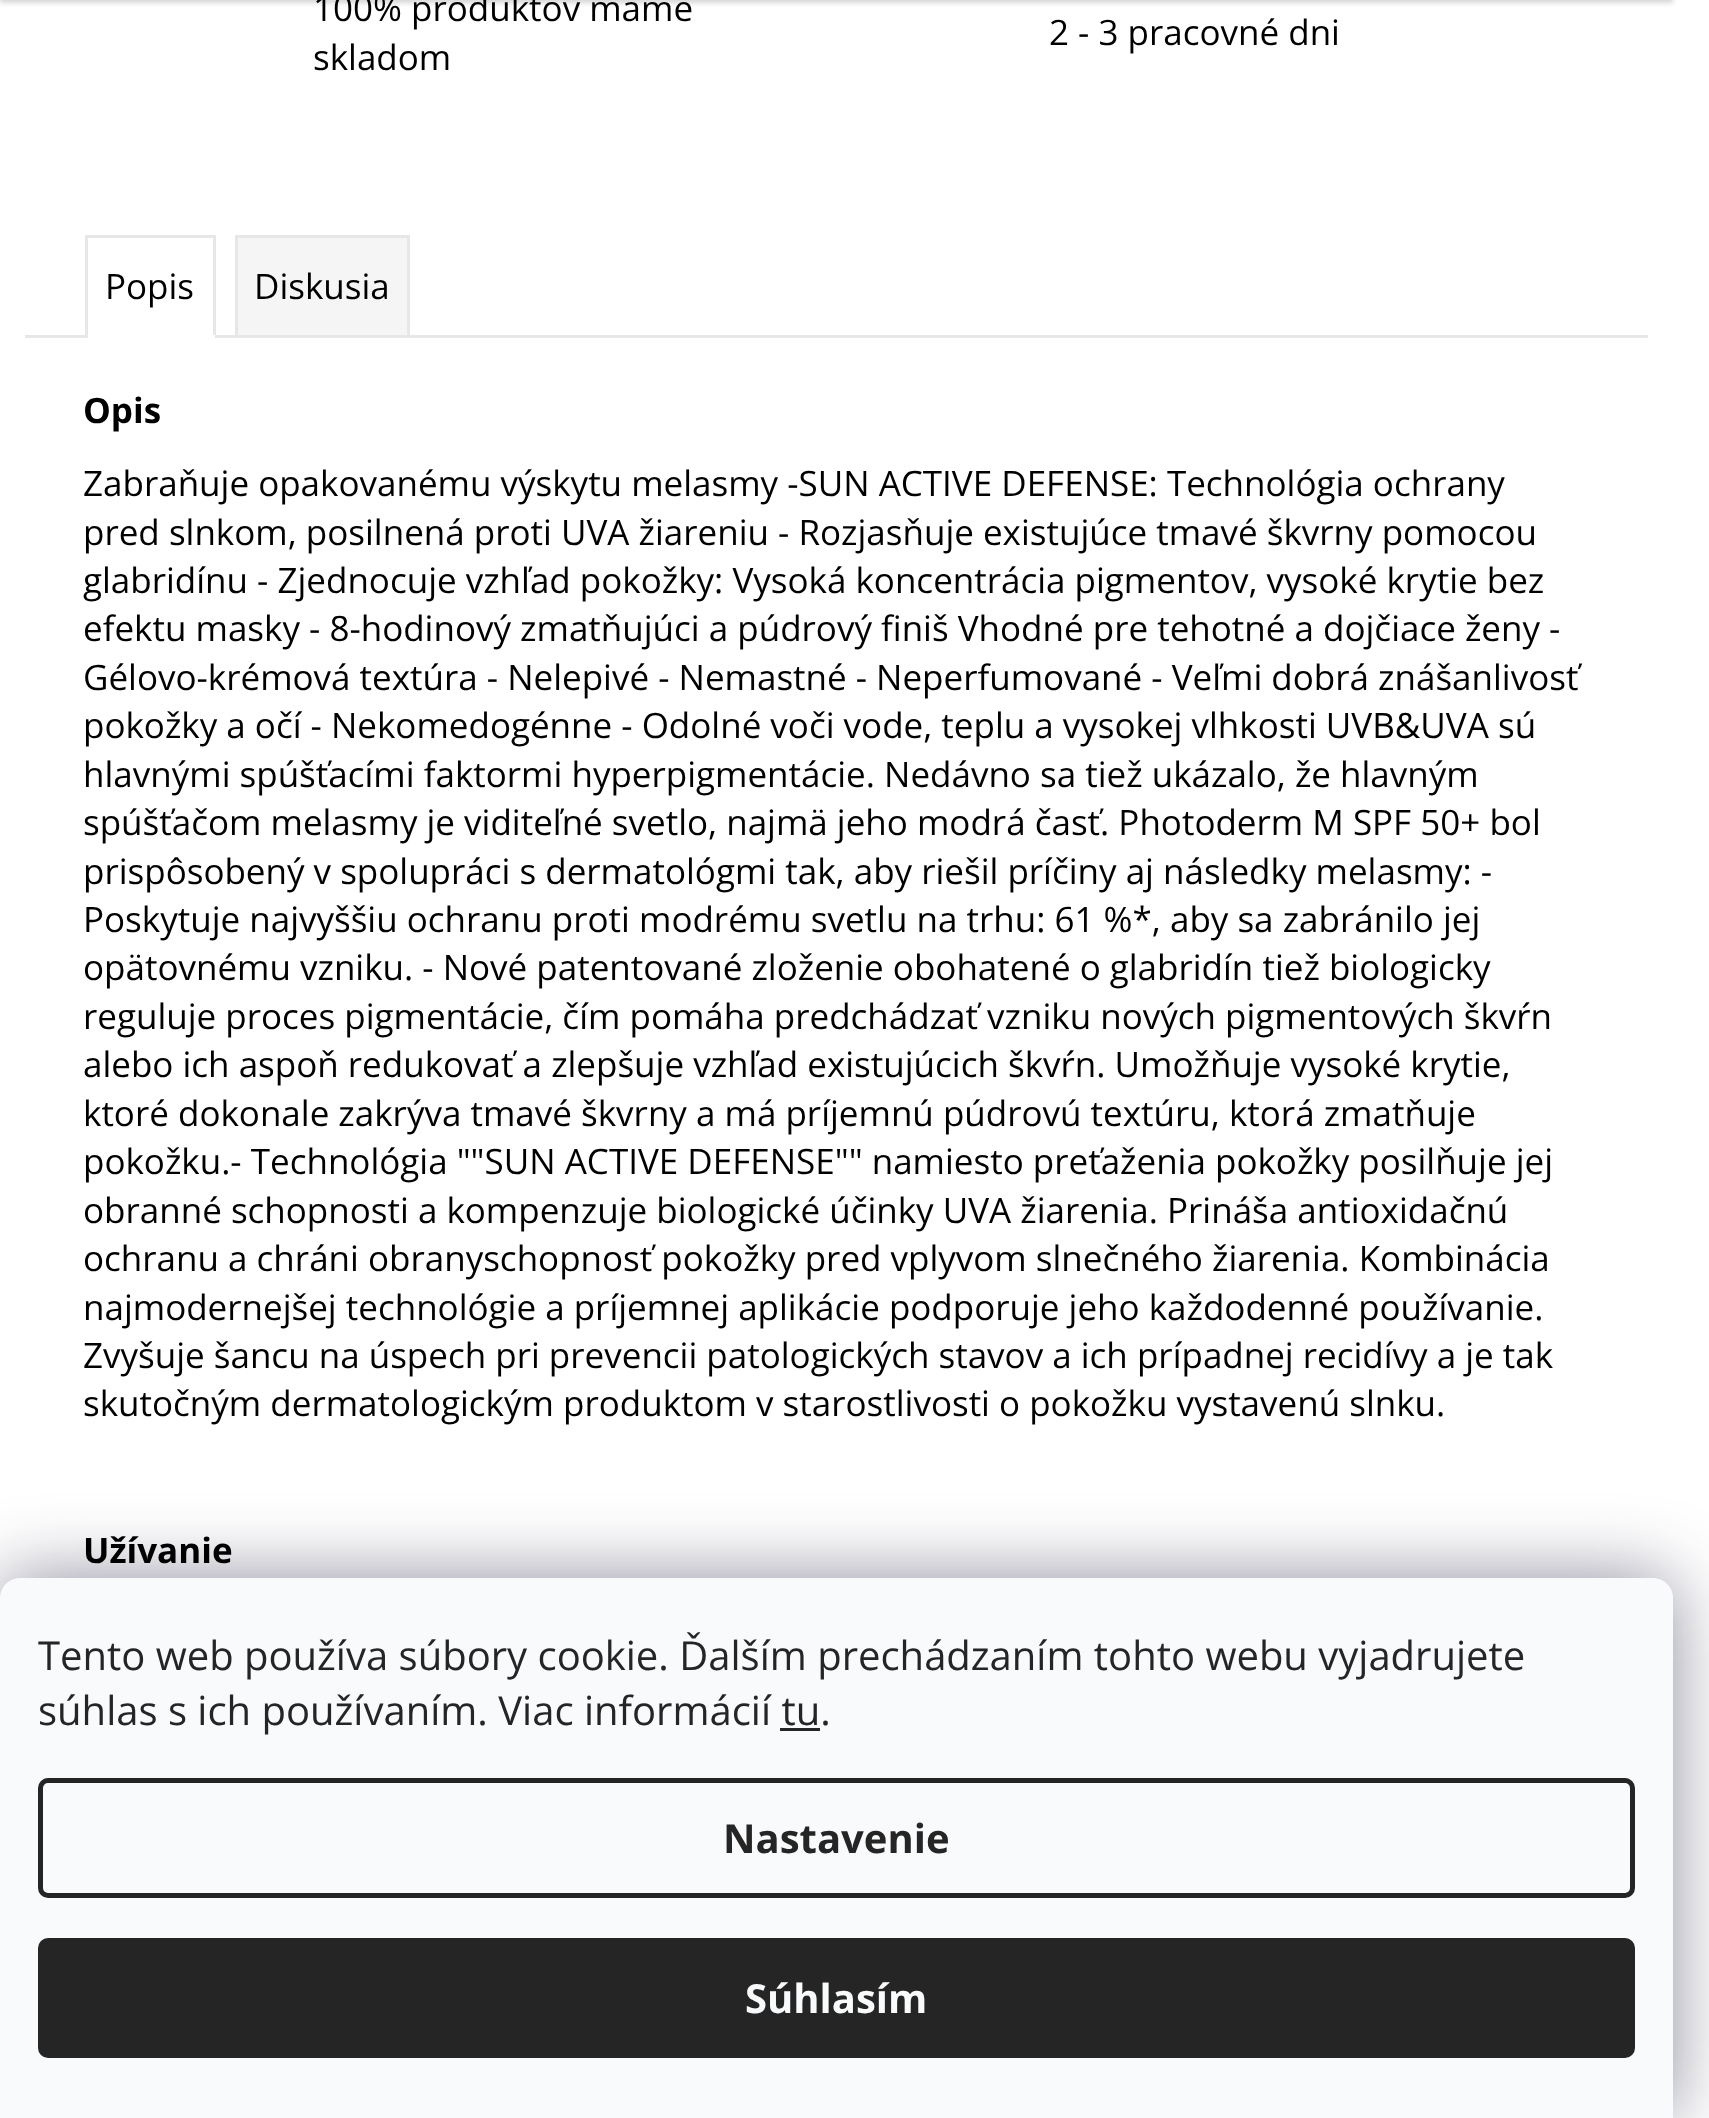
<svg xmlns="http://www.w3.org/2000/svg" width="1709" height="2118">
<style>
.a{font:35px Open Sans;fill:#000}
.b{font:bold 35px Open Sans;fill:#000}
.c{font:40px Open Sans;fill:#252525}
.d{font:bold 40px Open Sans;fill:#252525}
.e{font:bold 40px Open Sans;fill:#f8fafb}
</style>
<rect width="100%" height="100%" fill="#fff"/>
<path fill="#00000029" filter="blur(2.5px)" d="M0 -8h1673v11H0z"/>
<path fill="#e7e7e7" d="M25 335h1623v3H25z"/>
<path fill="#e7e7e7" d="M85 235h130v3H85z"/>
<path fill="#e7e7e7" d="M213 235h3v103H213z"/>
<path fill="#fff" d="M85 335h130v3H85z"/>
<path fill="#e7e7e7" d="M85 235h3v103H85z"/>
<path fill="#f5f5f5" stroke="#e7e7e7" stroke-width="3" d="M236.5 236.5h172v100H236.5z"/>
<rect fill="#1b193980" filter="blur(37.5px)" y="1578" width="1673" height="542" rx="20"/>
<path fill="#f8fafb" d="M20 1578h1633c11 0 20 9 20 20v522h-1673v-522c0-11 9-20 20-20z"/>
<path fill="#252525" d="M780 1728h40v3H780z"/>
<rect fill="none" stroke="#252525" stroke-width="5" x="40.5" y="1780.5" width="1592" height="115" rx="7.5"/>
<rect fill="#252525" x="38" y="1938" width="1597" height="120" rx="10"/>
<text class="a" x="313" y="21">100% produktov máme</text>
<text class="a" x="313" y="70">skladom</text>
<text class="a" x="1049" y="45">2 - 3 pracovné dni</text>
<text class="a" x="105" y="299">Popis</text>
<text class="a" x="254" y="299">Diskusia</text>
<text class="b" x="83" y="423">Opis</text>
<text class="a" x="83" y="496">Zabraňuje opakovanému výskytu melasmy -SUN ACTIVE DEFENSE: Technológia ochrany</text>
<text class="a" x="83" y="545">pred slnkom, posilnená proti UVA žiareniu - Rozjasňuje existujúce tmavé škvrny pomocou</text>
<text class="a" x="83" y="593">glabridínu - Zjednocuje vzhľad pokožky: Vysoká koncentrácia pigmentov, vysoké krytie bez</text>
<text class="a" x="83" y="641">efektu masky - 8-hodinový zmatňujúci a púdrový finiš Vhodné pre tehotné a dojčiace ženy -</text>
<text class="a" x="83" y="690">Gélovo-krémová textúra - Nelepivé - Nemastné - Neperfumované - Veľmi dobrá znášanlivosť</text>
<text class="a" x="83" y="738">pokožky a očí - Nekomedogénne - Odolné voči vode, teplu a vysokej vlhkosti UVB&amp;UVA sú</text>
<text class="a" x="83" y="787">hlavnými spúšťacími faktormi hyperpigmentácie. Nedávno sa tiež ukázalo, že hlavným</text>
<text class="a" x="83" y="835">spúšťačom melasmy je viditeľné svetlo, najmä jeho modrá časť. Photoderm M SPF 50+ bol</text>
<text class="a" x="83" y="884">prispôsobený v spolupráci s dermatológmi tak, aby riešil príčiny aj následky melasmy: -</text>
<text class="a" x="83" y="932">Poskytuje najvyššiu ochranu proti modrému svetlu na trhu: 61 %*, aby sa zabránilo jej</text>
<text class="a" x="83" y="980">opätovnému vzniku. - Nové patentované zloženie obohatené o glabridín tiež biologicky</text>
<text class="a" x="83" y="1029">reguluje proces pigmentácie, čím pomáha predchádzať vzniku nových pigmentových škvŕn</text>
<text class="a" x="83" y="1077">alebo ich aspoň redukovať a zlepšuje vzhľad existujúcich škvŕn. Umožňuje vysoké krytie,</text>
<text class="a" x="83" y="1126">ktoré dokonale zakrýva tmavé škvrny a má príjemnú púdrovú textúru, ktorá zmatňuje</text>
<text class="a" x="83" y="1174">pokožku.- Technológia ""SUN ACTIVE DEFENSE"" namiesto preťaženia pokožky posilňuje jej</text>
<text class="a" x="83" y="1223">obranné schopnosti a kompenzuje biologické účinky UVA žiarenia. Prináša antioxidačnú</text>
<text class="a" x="83" y="1271">ochranu a chráni obranyschopnosť pokožky pred vplyvom slnečného žiarenia. Kombinácia</text>
<text class="a" x="83" y="1320">najmodernejšej technológie a príjemnej aplikácie podporuje jeho každodenné používanie.</text>
<text class="a" x="83" y="1368">Zvyšuje šancu na úspech pri prevencii patologických stavov a ich prípadnej recidívy a je tak</text>
<text class="a" x="83" y="1416">skutočným dermatologickým produktom v starostlivosti o pokožku vystavenú slnku.</text>
<text class="b" x="83" y="1563">Užívanie</text>
<text class="c" x="38" y="1670">Tento web používa súbory cookie. Ďalším prechádzaním tohto webu vyjadrujete</text>
<text class="c" x="38" y="1725">súhlas s ich používaním. Viac informácií tu.</text>
<text class="d" x="723" y="1853">Nastavenie</text>
<text class="e" x="745" y="2013">Súhlasím</text>
</svg>
